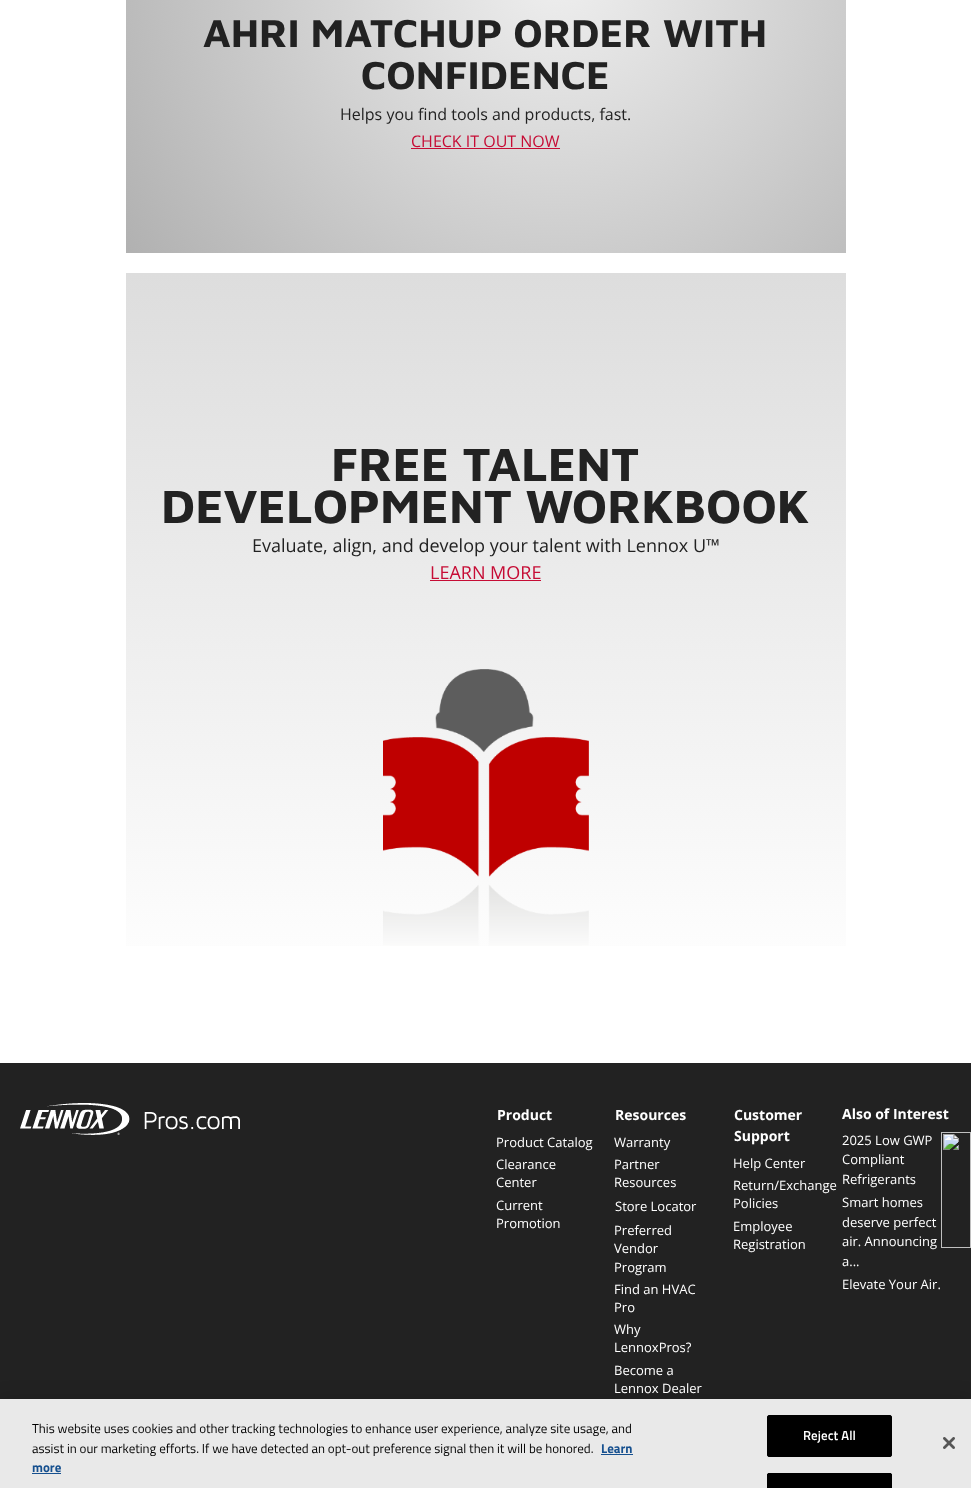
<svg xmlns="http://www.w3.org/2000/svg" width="971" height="1488">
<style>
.a{font:bold 40px Maven Pro;fill:#222}
.b{font:16px Open Sans;fill:#222}
.c{font:16px Open Sans;fill:#c60c35}
.d{font:bold 48px Maven Pro;fill:#222}
.e{font:18px Open Sans;fill:#222}
.f{font:18px Open Sans;fill:#c60c35}
.g{font:bold 14px Open Sans;fill:#fff}
.h{font:13px Open Sans;fill:#fff}
.i{font:13px Titillium Web;fill:#000}
.j{font:bold 13px Titillium Web;fill:#16508f}
.k{font:600 13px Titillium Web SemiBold;letter-spacing:0.1px;fill:#fff}
</style>
<rect width="100%" height="100%" fill="#fff"/>
<image href="1.png" x="126" y="0" width="720" height="253"/>
<path fill="#c60c35" d="M411 148h149v1H411z"/>
<image href="2.png" x="126" y="273" width="720" height="673"/>
<path fill="#c60c35" d="M430 580h111v1H430z"/>
<path fill="#222" d="M0 1063h971v336H0z"/>
<image href="3.png" x="20" y="1103" width="220" height="32"/>
<image href="4.png" x="941" y="1132" width="30" height="116"/>
<path fill="#00000033" filter="blur(9px)" d="M0 1399h971v89H0z"/>
<path fill="#e9e9e9" d="M0 1399h971v89H0z"/>
<path fill="#16508f" d="M601 1454h32v1H601z"/>
<path fill="#16508f" d="M32 1473h29v1H32z"/>
<rect fill="#000" stroke="#000" x="767.5" y="1415.5" width="124" height="41" rx="1.5"/>
<path fill="#000" d="M769 1473h121c1 0 2 1 2 2v13h-125v-13c0-1 1-2 2-2z"/>
<rect fill="none" stroke="#000" x="767.5" y="1473.5" width="124" height="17" rx="1.5"/>
<image href="5.png" x="943" y="1437" width="12" height="12"/>
<text class="a" x="203" y="47">AHRI MATCHUP ORDER WITH</text>
<text class="a" x="361" y="89">CONFIDENCE</text>
<text class="b" x="340" y="120">Helps you find tools and products, fast.</text>
<text class="c" x="411" y="147">CHECK IT OUT NOW</text>
<text class="d" x="331" y="481">FREE TALENT</text>
<text class="d" x="161" y="523">DEVELOPMENT WORKBOOK</text>
<text class="e" x="252" y="552">Evaluate, align, and develop your talent with Lennox U™</text>
<text class="f" x="430" y="579">LEARN MORE</text>
<text class="g" x="497" y="1120">Product</text>
<text class="h" x="496" y="1147">Product Catalog</text>
<text class="h" x="496" y="1169">Clearance</text>
<text class="h" x="496" y="1187">Center</text>
<text class="h" x="496" y="1210">Current</text>
<text class="h" x="496" y="1228">Promotion</text>
<text class="g" x="615" y="1120">Resources</text>
<text class="h" x="614" y="1147">Warranty</text>
<text class="h" x="614" y="1169">Partner</text>
<text class="h" x="614" y="1187">Resources</text>
<text class="h" x="615" y="1211">Store Locator</text>
<text class="h" x="614" y="1235">Preferred</text>
<text class="h" x="614" y="1253">Vendor</text>
<text class="h" x="614" y="1272">Program</text>
<text class="h" x="614" y="1294">Find an HVAC</text>
<text class="h" x="614" y="1312">Pro</text>
<text class="h" x="614" y="1334">Why</text>
<text class="h" x="614" y="1352">LennoxPros?</text>
<text class="h" x="614" y="1375">Become a</text>
<text class="h" x="614" y="1393">Lennox Dealer</text>
<text class="g" x="734" y="1120">Customer</text>
<text class="g" x="734" y="1141">Support</text>
<text class="h" x="733" y="1168">Help Center</text>
<text class="h" x="733" y="1190">Return/Exchange</text>
<text class="h" x="733" y="1208">Policies</text>
<text class="h" x="733" y="1231">Employee</text>
<text class="h" x="733" y="1249">Registration</text>
<text class="g" x="842" y="1119">Also of Interest</text>
<text class="h" x="842" y="1145">2025 Low GWP</text>
<text class="h" x="842" y="1164">Compliant</text>
<text class="h" x="842" y="1184">Refrigerants</text>
<text class="h" x="842" y="1207">Smart homes</text>
<text class="h" x="842" y="1227">deserve perfect</text>
<text class="h" x="842" y="1246">air. Announcing</text>
<text class="h" x="842" y="1266">a...</text>
<text class="h" x="842" y="1289">Elevate Your Air.</text>
<text class="i" x="32" y="1433">This website uses cookies and other tracking technologies to enhance user experience, analyze site usage, and</text>
<text class="i" x="32" y="1453">assist in our marketing efforts. If we have detected an opt-out preference signal then it will be honored.</text>
<text class="j" x="601" y="1453">Learn</text>
<text class="j" x="32" y="1472">more</text>
<text class="k" x="803" y="1440">Reject All</text>
</svg>
